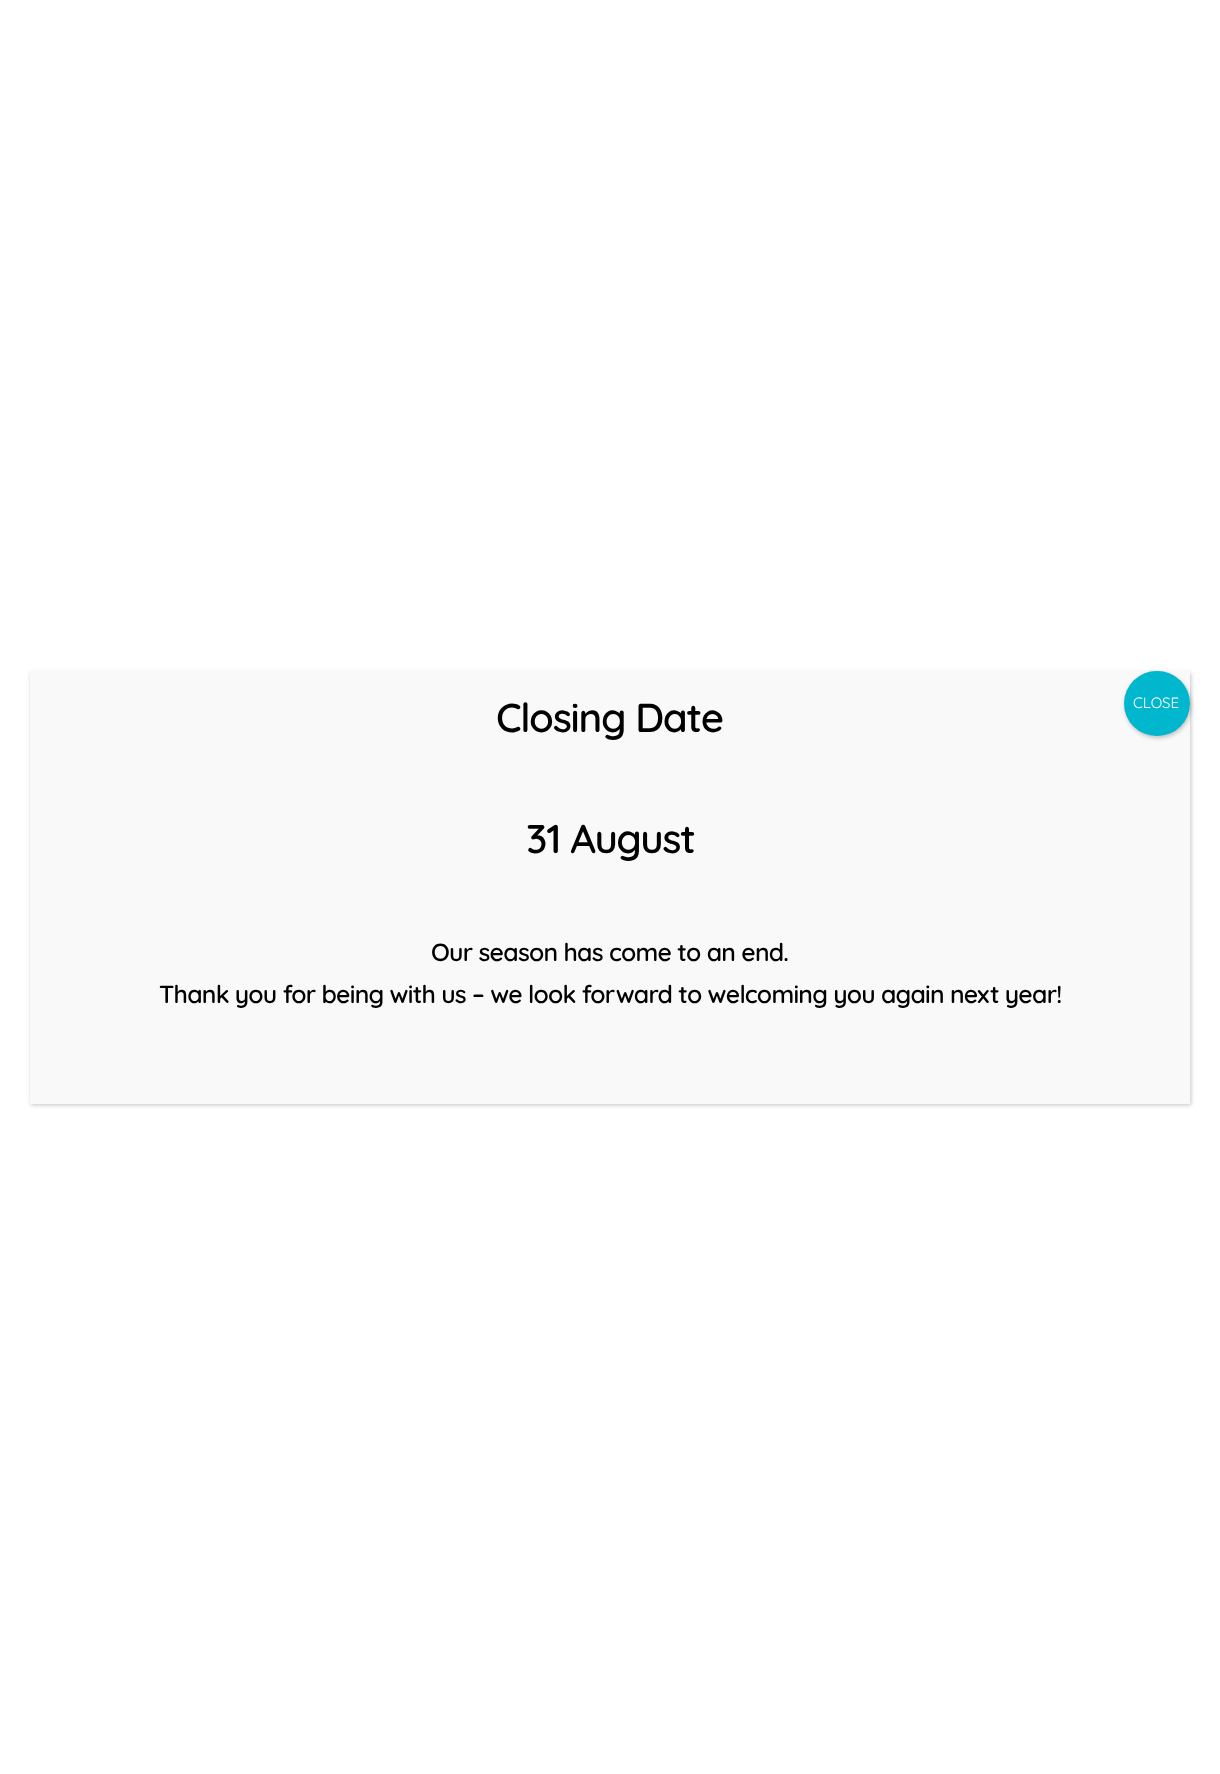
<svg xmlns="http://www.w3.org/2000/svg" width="1220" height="1774">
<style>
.a{font:600 40.25px Quicksand;letter-spacing:-1.25px;fill:#000}
.b{font:600 24.75px Quicksand;letter-spacing:-0.75px;fill:#000}
.c{font:15px Quicksand;fill:#fff}
</style>
<rect width="100%" height="100%" fill="#fff"/>
<path fill="#0202023b" filter="blur(2px)" d="M31 673h1160v432H31z"/>
<path fill="#f9f9f9" d="M30 671h1160v433H30z"/>
<rect fill="#0202023b" filter="blur(2px)" x="1125" y="673" width="66" height="65" rx="32.5"/>
<rect fill="#00b7cd" x="1124" y="671" width="66" height="65" rx="32.5"/>
<text class="a" x="496" y="732">Closing Date</text>
<text class="a" x="526" y="853">31 August</text>
<text class="b" x="431" y="961">Our season has come to an end.</text>
<text class="b" x="159" y="1003">Thank you for being with us – we look forward to welcoming you again next year!</text>
<text class="c" x="1133" y="708">CLOSE</text>
</svg>
